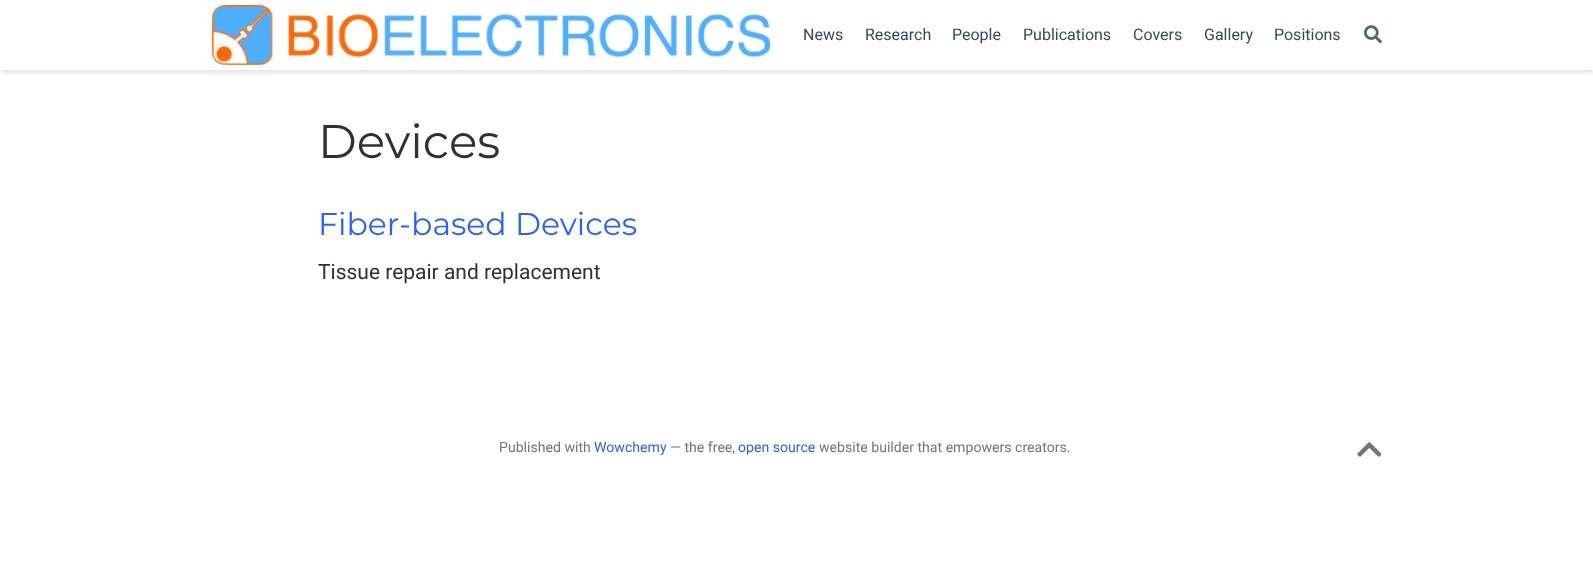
<svg xmlns="http://www.w3.org/2000/svg" width="1593" height="576">
<style>
.a{font:16px Roboto;fill:#34495e}
.b{font:47px Montserrat;fill:#313131}
.c{font:31.5px Montserrat;fill:#2962ff}
.d{font:21px Roboto;fill:#313131}
.e{font:14.1px Roboto;fill:#757575}
.f{font:14.1px Roboto;fill:#2962ff}
</style>
<defs>
<clipPath id="clip1"><path d="M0 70h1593v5H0z"/></clipPath>
</defs>
<rect width="100%" height="100%" fill="#fff"/>
<g clip-path="url(#clip1)">
<path fill="#0000001c" filter="blur(2.5px)" d="M0 3h1593v70H0z"/>
</g>
<image href="1.png" x="211" y="5" width="560" height="60"/>
<image href="2.png" x="1364" y="25" width="18" height="19"/>
<image href="3.png" x="1357" y="442" width="25" height="15"/>
<text class="a" x="803" y="40">News</text>
<text class="a" x="865" y="40">Research</text>
<text class="a" x="952" y="40">People</text>
<text class="a" x="1023" y="40">Publications</text>
<text class="a" x="1133" y="40">Covers</text>
<text class="a" x="1204" y="40">Gallery</text>
<text class="a" x="1274" y="40">Positions</text>
<text class="b" x="318" y="158">Devices</text>
<text class="c" x="318" y="235">Fiber-based Devices</text>
<text class="d" x="318" y="279">Tissue repair and replacement</text>
<text class="e" x="499" y="452">Published with</text>
<text class="f" x="594" y="452">Wowchemy</text>
<text class="e" x="670" y="452">— the free,</text>
<text class="f" x="738" y="452">open source</text>
<text class="e" x="819" y="452">website builder that empowers creators.</text>
</svg>
